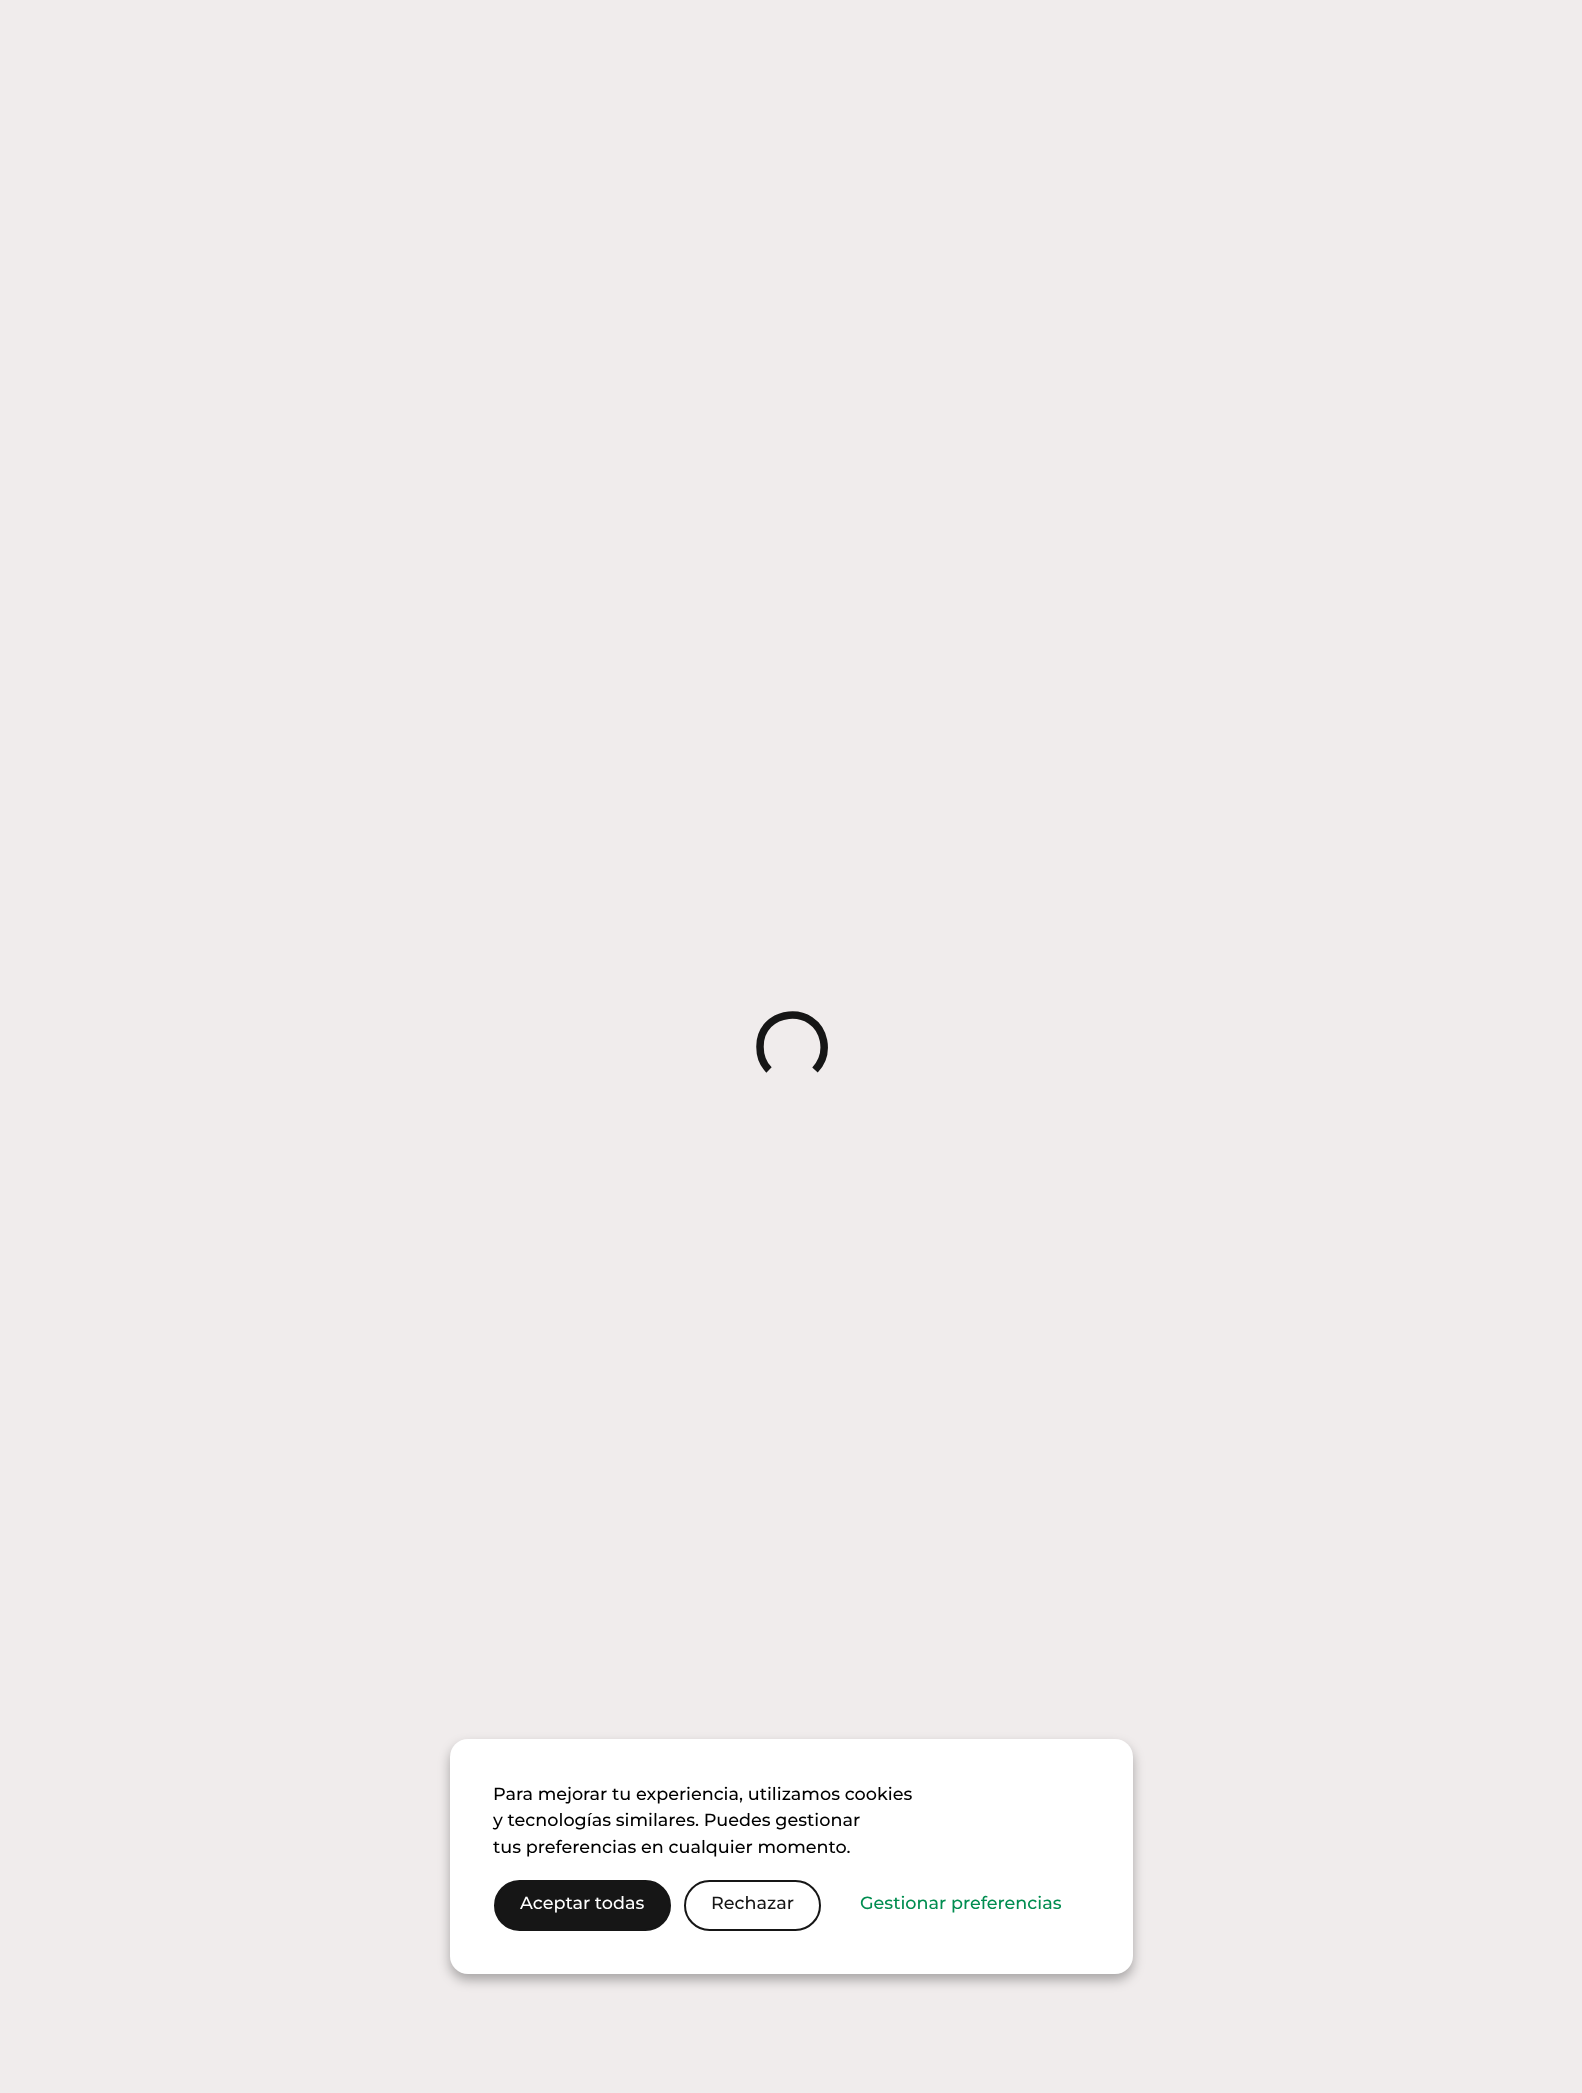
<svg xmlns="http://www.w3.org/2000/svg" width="1582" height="2093">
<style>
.a{font:500 17.6px Montserrat;fill:#000}
.b{font:500 17.6px Montserrat;fill:#fff}
.c{font:500 17.6px Montserrat;fill:#161616}
.d{font:500 17.6px Montserrat;fill:#008d50}
</style>
<rect width="100%" height="100%" fill="#f0ecec"/>
<path fill="none" stroke="#161616" stroke-width="7.5" d="M769 1070c-6-6-9-14.5-9-23c-.5-38.5 56-44 63.5-6.5c2 10.5-1 21.5-8.5 29.5"/>
<rect fill="#0000004d" filter="blur(6px)" x="450" y="1745" width="683" height="235" rx="18"/>
<rect fill="#fff" x="450" y="1739" width="683" height="235" rx="18"/>
<rect fill="#161616" stroke="#161616" stroke-width="2" x="495" y="1881" width="175" height="49" rx="24.5"/>
<rect fill="none" stroke="#161616" stroke-width="2" x="685" y="1881" width="135" height="49" rx="24.5"/>
<text class="a" x="493" y="1800">Para mejorar tu experiencia, utilizamos cookies</text>
<text class="a" x="493" y="1826">y tecnologías similares. Puedes gestionar</text>
<text class="a" x="493" y="1853">tus preferencias en cualquier momento.</text>
<text class="b" x="520" y="1909">Aceptar todas</text>
<text class="c" x="711" y="1909">Rechazar</text>
<text class="d" x="860" y="1909">Gestionar preferencias</text>
</svg>
